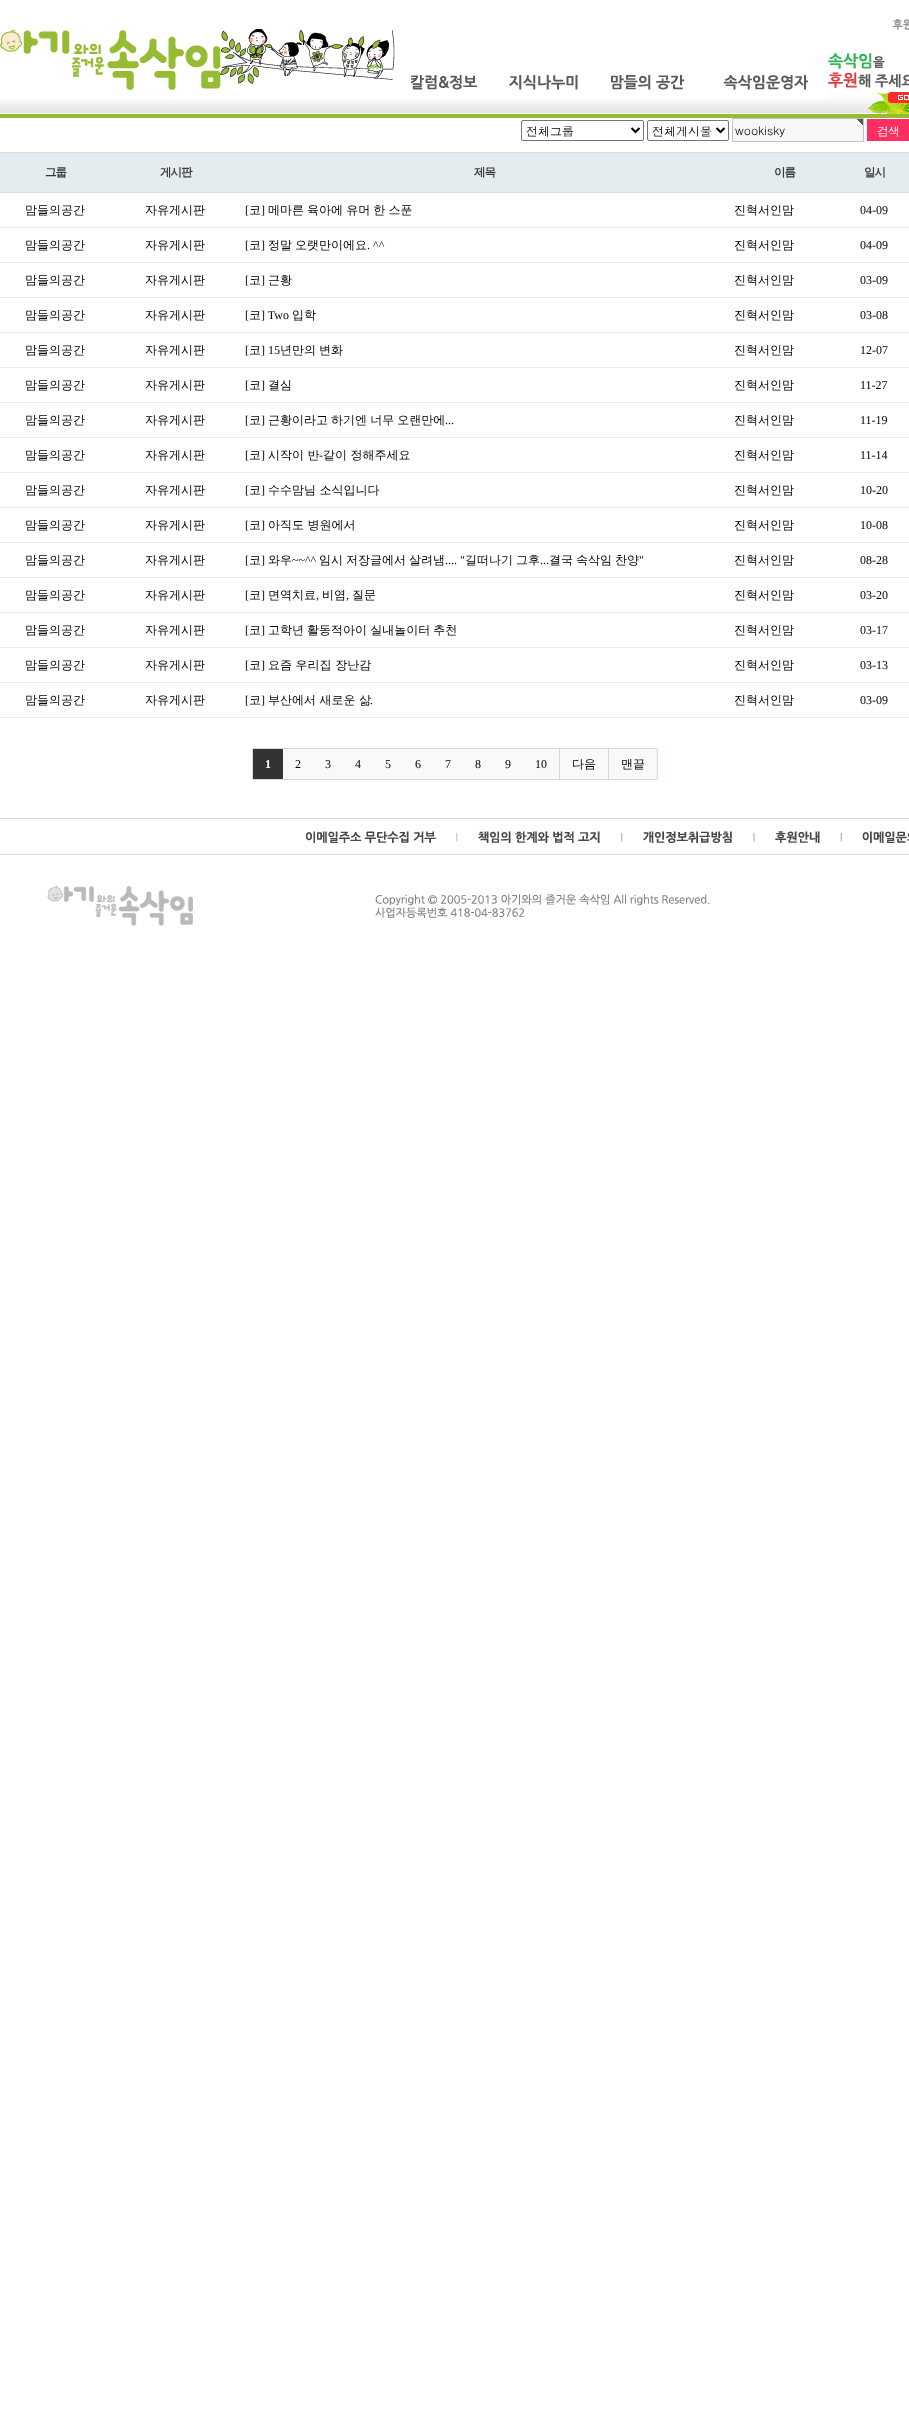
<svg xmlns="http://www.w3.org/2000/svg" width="909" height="2425">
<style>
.a{font:12px Dotum;fill:#000}
.b{font:12px Dotum;letter-spacing:-1px;fill:#fff}
.c{font:bold 11.5px WenQuanYi Zen Hei;letter-spacing:-1px;fill:#383838}
.d{font:500 12px WenQuanYi Zen Hei;fill:#000}
.e{font:12px Liberation Serif;fill:#000}
.f{font:bold 12px Liberation Serif;fill:#fff}
</style>
<rect width="100%" height="100%" fill="#fff"/>
<image href="1.png" x="0" y="99" width="909" height="19"/>
<image href="2.png" x="892" y="19" width="17" height="11"/>
<image href="3.png" x="0" y="29" width="395" height="61"/>
<image href="4.png" x="411" y="75" width="66" height="15"/>
<image href="5.png" x="509" y="75" width="69" height="15"/>
<image href="6.png" x="611" y="75" width="74" height="15"/>
<image href="7.png" x="723" y="75" width="85" height="15"/>
<image href="8.png" x="828" y="53" width="81" height="61"/>
<rect fill="none" stroke="#767676" x="521.5" y="120.5" width="122" height="20" rx="1.5"/>
<path fill="none" stroke="#000" stroke-width="2" d="M631.5 128l4 4l4-4"/>
<rect fill="none" stroke="#767676" x="647.5" y="120.5" width="81" height="20" rx="1.5"/>
<path fill="none" stroke="#000" stroke-width="2" d="M716.5 128l4 4l4-4"/>
<path fill="#f7f7f7" d="M733 119h130v22H733z"/>
<image href="9.png" x="857" y="119" width="6" height="6"/>
<path fill="none" stroke="#b8c9c2" d="M732.5 118.5h131v23H732.5z"/>
<path fill="#ff3061" d="M867 119h42v22H867z"/>
<path fill="#e5ecef" d="M0 153h909v39H0z"/>
<path fill="#d1dee2" d="M0 152h909v1H0z"/>
<path fill="#d1dee2" d="M0 192h909v1H0z"/>
<path fill="#e9e9e9" d="M0 227h909v1H0z"/>
<path fill="#e9e9e9" d="M0 262h909v1H0z"/>
<path fill="#e9e9e9" d="M0 297h909v1H0z"/>
<path fill="#e9e9e9" d="M0 332h909v1H0z"/>
<path fill="#e9e9e9" d="M0 367h909v1H0z"/>
<path fill="#e9e9e9" d="M0 402h909v1H0z"/>
<path fill="#e9e9e9" d="M0 437h909v1H0z"/>
<path fill="#e9e9e9" d="M0 472h909v1H0z"/>
<path fill="#e9e9e9" d="M0 507h909v1H0z"/>
<path fill="#e9e9e9" d="M0 542h909v1H0z"/>
<path fill="#e9e9e9" d="M0 577h909v1H0z"/>
<path fill="#e9e9e9" d="M0 612h909v1H0z"/>
<path fill="#e9e9e9" d="M0 647h909v1H0z"/>
<path fill="#e9e9e9" d="M0 682h909v1H0z"/>
<path fill="#e9e9e9" d="M0 717h909v1H0z"/>
<path fill="none" stroke="#cfded8" d="M252.5 748.5h405v31H252.5z"/>
<path fill="#333" d="M253 749h30v30H253z"/>
<path fill="#f9f9f9" d="M283 749h276v30H283z"/>
<path fill="#f9f9f9" d="M560 749h48v30H560z"/>
<path fill="#cfded8" d="M559 749h1v30H559z"/>
<path fill="#f9f9f9" d="M609 749h48v30H609z"/>
<path fill="#cfded8" d="M608 749h1v30H608z"/>
<path fill="#d5d5d5" d="M0 818h909v1H0z"/>
<image href="10.png" x="306" y="831" width="152" height="12"/>
<image href="11.png" x="478" y="831" width="145" height="12"/>
<image href="12.png" x="643" y="831" width="112" height="12"/>
<image href="13.png" x="775" y="831" width="67" height="12"/>
<image href="14.png" x="862" y="831" width="47" height="12"/>
<path fill="#d5d5d5" d="M0 854h909v1H0z"/>
<image href="15.png" x="47" y="885" width="146" height="41"/>
<image href="16.png" x="375" y="894" width="335" height="24"/>
<text class="a" x="526" y="136">전체그룹</text>
<text class="a" x="652" y="136">전체게시물</text>
<text class="a" x="735" y="135">wookisky</text>
<text class="b" x="877" y="136">검색</text>
<text class="c" x="45" y="176">그룹</text>
<text class="c" x="160" y="176">게시판</text>
<text class="c" x="474" y="176">제목</text>
<text class="c" x="774" y="176">이름</text>
<text class="c" x="864" y="176">일시</text>
<text class="d" x="25" y="214">맘들의공간</text>
<text class="d" x="145" y="214">자유게시판</text>
<text class="e" x="245" y="214">[</text>
<text class="d" x="249" y="214">코</text>
<text class="e" x="261" y="214">]</text>
<text class="d" x="268" y="214" word-spacing="-0.5">메마른 육아에 유머 한 스푼</text>
<text class="d" x="734" y="214">진혁서인맘</text>
<text class="e" x="860" y="214">04-09</text>
<text class="d" x="25" y="249">맘들의공간</text>
<text class="d" x="145" y="249">자유게시판</text>
<text class="e" x="245" y="249">[</text>
<text class="d" x="249" y="249">코</text>
<text class="e" x="261" y="249">]</text>
<text class="d" x="268" y="249">정말</text>
<text class="d" x="295" y="249">오랫만이에요</text>
<text class="e" x="367" y="249">. ^^</text>
<text class="d" x="734" y="249">진혁서인맘</text>
<text class="e" x="860" y="249">04-09</text>
<text class="d" x="25" y="284">맘들의공간</text>
<text class="d" x="145" y="284">자유게시판</text>
<text class="e" x="245" y="284">[</text>
<text class="d" x="249" y="284">코</text>
<text class="e" x="261" y="284">]</text>
<text class="d" x="268" y="284">근황</text>
<text class="d" x="734" y="284">진혁서인맘</text>
<text class="e" x="860" y="284">03-09</text>
<text class="d" x="25" y="319">맘들의공간</text>
<text class="d" x="145" y="319">자유게시판</text>
<text class="e" x="245" y="319">[</text>
<text class="d" x="249" y="319">코</text>
<text class="e" x="261" y="319">] Two</text>
<text class="d" x="292" y="319">입학</text>
<text class="d" x="734" y="319">진혁서인맘</text>
<text class="e" x="860" y="319">03-08</text>
<text class="d" x="25" y="354">맘들의공간</text>
<text class="d" x="145" y="354">자유게시판</text>
<text class="e" x="245" y="354">[</text>
<text class="d" x="249" y="354">코</text>
<text class="e" x="261" y="354">] 15</text>
<text class="d" x="280" y="354">년만의</text>
<text class="d" x="319" y="354">변화</text>
<text class="d" x="734" y="354">진혁서인맘</text>
<text class="e" x="860" y="354">12-07</text>
<text class="d" x="25" y="389">맘들의공간</text>
<text class="d" x="145" y="389">자유게시판</text>
<text class="e" x="245" y="389">[</text>
<text class="d" x="249" y="389">코</text>
<text class="e" x="261" y="389">]</text>
<text class="d" x="268" y="389">결심</text>
<text class="d" x="734" y="389">진혁서인맘</text>
<text class="e" x="860" y="389">11-27</text>
<text class="d" x="25" y="424">맘들의공간</text>
<text class="d" x="145" y="424">자유게시판</text>
<text class="e" x="245" y="424">[</text>
<text class="d" x="249" y="424">코</text>
<text class="e" x="261" y="424">]</text>
<text class="d" x="268" y="424" word-spacing="-0.5">근황이라고 하기엔 너무 오랜만에</text>
<text class="e" x="445" y="424">...</text>
<text class="d" x="734" y="424">진혁서인맘</text>
<text class="e" x="860" y="424">11-19</text>
<text class="d" x="25" y="459">맘들의공간</text>
<text class="d" x="145" y="459">자유게시판</text>
<text class="e" x="245" y="459">[</text>
<text class="d" x="249" y="459">코</text>
<text class="e" x="261" y="459">]</text>
<text class="d" x="268" y="459">시작이 반</text>
<text class="e" x="319" y="459">-</text>
<text class="d" x="323" y="459">같이 정해주세요</text>
<text class="d" x="734" y="459">진혁서인맘</text>
<text class="e" x="860" y="459">11-14</text>
<text class="d" x="25" y="494">맘들의공간</text>
<text class="d" x="145" y="494">자유게시판</text>
<text class="e" x="245" y="494">[</text>
<text class="d" x="249" y="494">코</text>
<text class="e" x="261" y="494">]</text>
<text class="d" x="268" y="494">수수맘님 소식입니다</text>
<text class="d" x="734" y="494">진혁서인맘</text>
<text class="e" x="860" y="494">10-20</text>
<text class="d" x="25" y="529">맘들의공간</text>
<text class="d" x="145" y="529">자유게시판</text>
<text class="e" x="245" y="529">[</text>
<text class="d" x="249" y="529">코</text>
<text class="e" x="261" y="529">]</text>
<text class="d" x="268" y="529">아직도 병원에서</text>
<text class="d" x="734" y="529">진혁서인맘</text>
<text class="e" x="860" y="529">10-08</text>
<text class="d" x="25" y="564">맘들의공간</text>
<text class="d" x="145" y="564">자유게시판</text>
<text class="e" x="245" y="564">[</text>
<text class="d" x="249" y="564">코</text>
<text class="e" x="261" y="564">]</text>
<text class="d" x="268" y="564">와우</text>
<text class="e" x="292" y="564">~~^^</text>
<text class="d" x="319" y="564">임시</text>
<text class="d" x="346" y="564">저장글에서</text>
<text class="d" x="409" y="564">살려냄</text>
<text class="e" x="445" y="564">.... "</text>
<text class="d" x="465" y="564">길떠나기</text>
<text class="d" x="516" y="564">그후</text>
<text class="d" x="549" y="564">결국</text>
<text class="d" x="576" y="564">속삭임</text>
<text class="d" x="615" y="564">찬양</text>
<text class="e" x="639" y="564">"</text>
<text class="e" x="540" y="564">...</text>
<text class="d" x="734" y="564">진혁서인맘</text>
<text class="e" x="860" y="564">08-28</text>
<text class="d" x="25" y="599">맘들의공간</text>
<text class="d" x="145" y="599">자유게시판</text>
<text class="e" x="245" y="599">[</text>
<text class="d" x="249" y="599">코</text>
<text class="e" x="261" y="599">]</text>
<text class="d" x="268" y="599">면역치료</text>
<text class="e" x="316" y="599">,</text>
<text class="d" x="322" y="599">비염</text>
<text class="e" x="346" y="599">,</text>
<text class="d" x="352" y="599">질문</text>
<text class="d" x="734" y="599">진혁서인맘</text>
<text class="e" x="860" y="599">03-20</text>
<text class="d" x="25" y="634">맘들의공간</text>
<text class="d" x="145" y="634">자유게시판</text>
<text class="e" x="245" y="634">[</text>
<text class="d" x="249" y="634">코</text>
<text class="e" x="261" y="634">]</text>
<text class="d" x="268" y="634" word-spacing="-0.5">고학년 활동적아이 실내놀이터 추천</text>
<text class="d" x="734" y="634">진혁서인맘</text>
<text class="e" x="860" y="634">03-17</text>
<text class="d" x="25" y="669">맘들의공간</text>
<text class="d" x="145" y="669">자유게시판</text>
<text class="e" x="245" y="669">[</text>
<text class="d" x="249" y="669">코</text>
<text class="e" x="261" y="669">]</text>
<text class="d" x="268" y="669">요즘 우리집 장난감</text>
<text class="d" x="734" y="669">진혁서인맘</text>
<text class="e" x="860" y="669">03-13</text>
<text class="d" x="25" y="704">맘들의공간</text>
<text class="d" x="145" y="704">자유게시판</text>
<text class="e" x="245" y="704">[</text>
<text class="d" x="249" y="704">코</text>
<text class="e" x="261" y="704">]</text>
<text class="d" x="268" y="704">부산에서 새로운 삶</text>
<text class="e" x="370" y="704">.</text>
<text class="d" x="734" y="704">진혁서인맘</text>
<text class="e" x="860" y="704">03-09</text>
<text class="f" x="265" y="768">1</text>
<text class="e" x="295" y="768">2</text>
<text class="e" x="325" y="768">3</text>
<text class="e" x="355" y="768">4</text>
<text class="e" x="385" y="768">5</text>
<text class="e" x="415" y="768">6</text>
<text class="e" x="445" y="768">7</text>
<text class="e" x="475" y="768">8</text>
<text class="e" x="505" y="768">9</text>
<text class="e" x="535" y="768">10</text>
<text class="d" x="572" y="768">다음</text>
<text class="d" x="621" y="768">맨끝</text>
</svg>
